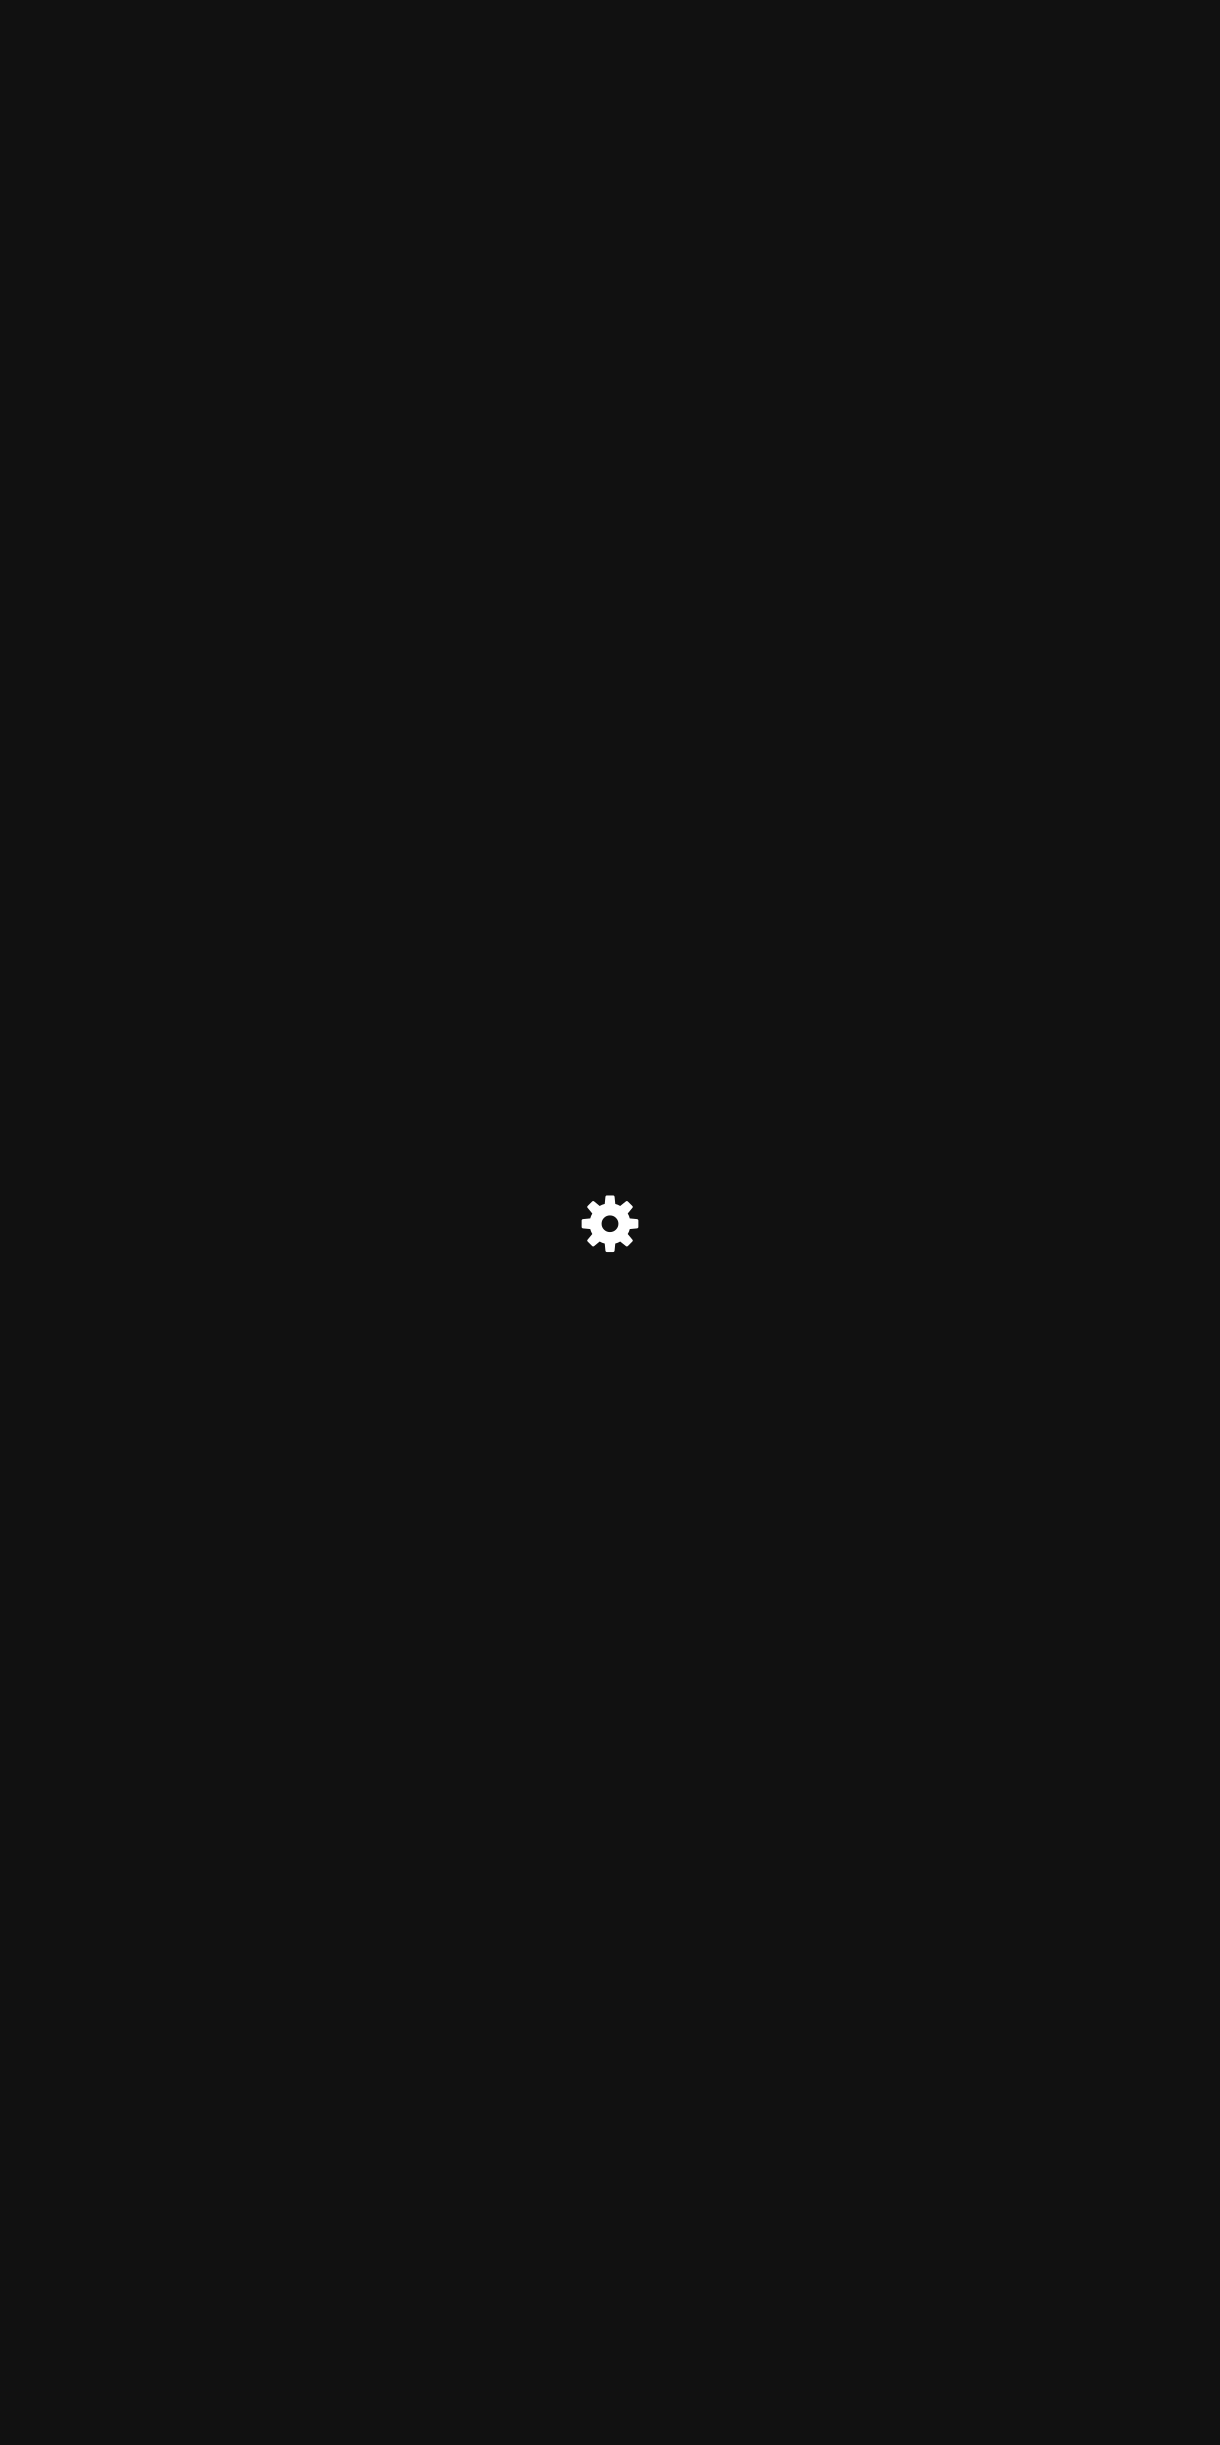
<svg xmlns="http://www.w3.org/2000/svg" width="1220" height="2445">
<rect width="100%" height="100%" fill="#111"/>
<image href="1.png" x="581" y="1195" width="58" height="58"/>
</svg>
